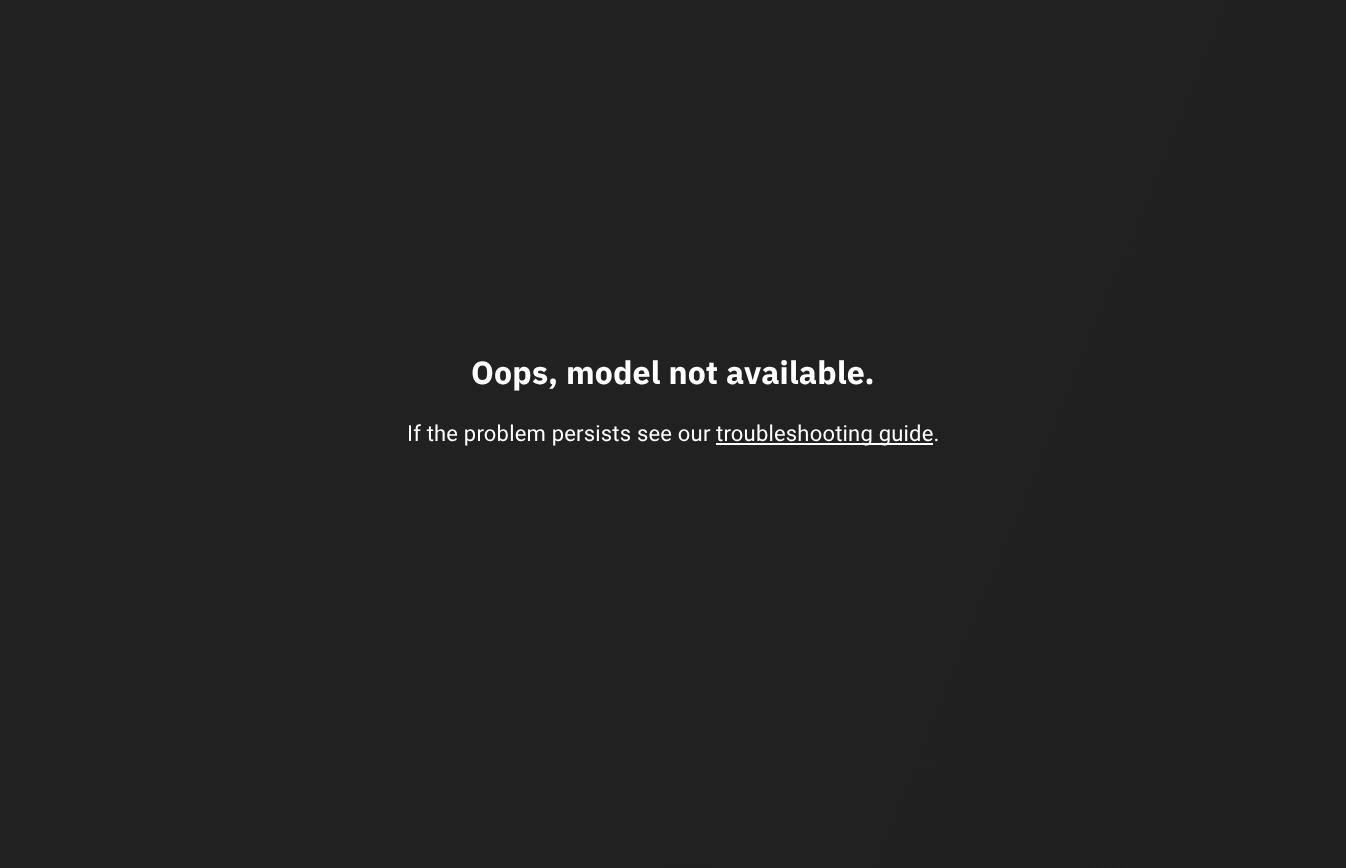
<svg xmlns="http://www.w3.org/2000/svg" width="1346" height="868">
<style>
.a{font:bold 32px IBM Plex Sans;letter-spacing:0.2px;fill:#fff}
.b{font:22px Roboto;letter-spacing:0.2px;fill:#fff}
</style>
<defs>
<linearGradient id="g1" gradientUnits="userSpaceOnUse" x1="-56" y1="139" x2="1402" y2="729"><stop offset="0" stop-color="#222"/><stop offset="1" stop-color="#202020"/></linearGradient>
</defs>
<rect width="100%" height="100%" fill="#fff"/>
<path fill="url(#g1)" d="M0 0h1346v868H0z"/>
<path fill="#fff" d="M716 443h217v2H716z"/>
<text class="a" x="471" y="384">Oops, model not available.</text>
<text class="b" x="407" y="441">If the problem persists see our</text>
<text class="b" x="716" y="441">troubleshooting guide.</text>
</svg>
